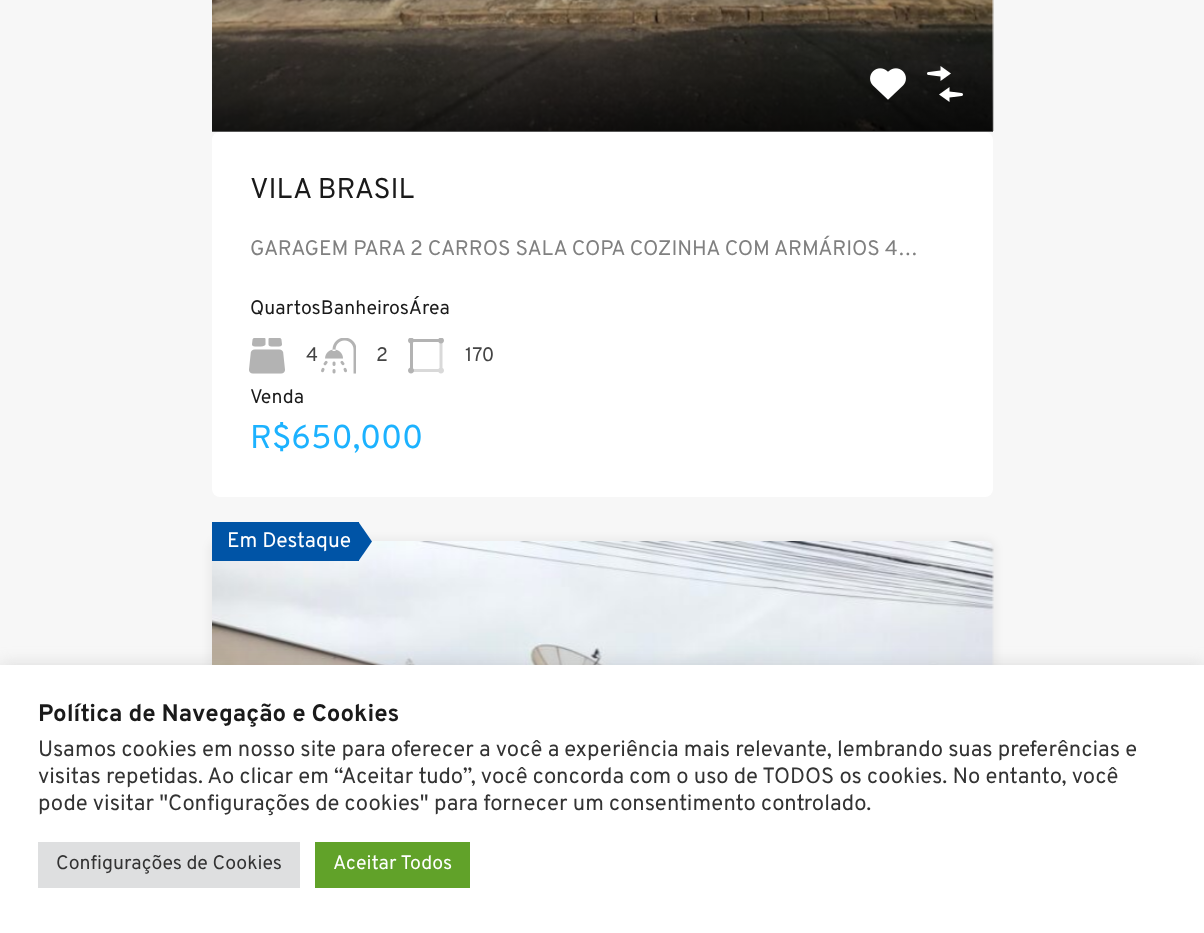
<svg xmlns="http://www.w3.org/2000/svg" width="1204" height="933">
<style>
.a{font:28.5px Overpass;fill:#1a1a1a}
.b{font:21px Overpass;fill:#808080}
.c{font:19.5px Overpass;fill:#1a1a1a}
.d{font:19.5px Overpass;fill:#444}
.e{font:33px Overpass;fill:#1cb2ff}
.f{font:21px Overpass;fill:#fff}
.g{font:bold 24px Overpass;fill:#1a1a1a}
.h{font:22px Overpass;fill:#333}
.i{font:19.5px Overpass;fill:#333}
.j{font:19.5px Overpass;fill:#fff}
</style>
<defs>
<linearGradient id="g1" gradientUnits="userSpaceOnUse" x1="602" y1="27" x2="602" y2="132"><stop offset="0" stop-color="#000" stop-opacity="0"/><stop offset="1" stop-color="#000" stop-opacity="0.65"/></linearGradient>
</defs>
<rect width="100%" height="100%" fill="#f7f7f7"/>
<image href="1.png" x="212" y="0" width="782" height="131"/>
<path fill="url(#g1)" d="M212 30h781v102H212z"/>
<image href="2.png" x="870" y="68" width="36" height="32"/>
<image href="3.png" x="927" y="66" width="36" height="36"/>
<rect fill="#fff" x="212" y="132" width="781" height="365" rx="8"/>
<image href="4.png" x="249" y="338" width="36" height="36"/>
<image href="5.png" x="321" y="338" width="35" height="36"/>
<image href="6.png" x="408" y="338" width="36" height="36"/>
<rect fill="#0000000d" filter="blur(4px)" x="209" y="539" width="787" height="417" rx="11"/>
<image href="7.png" x="212" y="541" width="782" height="124"/>
<path fill="#0054a6" d="M212 522h147v39H212z"/>
<path fill="#0054a6" d="M358.5 561v-39l13.5 19.5z"/>
<path fill="#acabab4d" filter="blur(7.5px)" d="M0 663h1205v269H0z"/>
<path fill="#fff" d="M0 665h1204v268H0z"/>
<path fill="#dedfe0" d="M38 842h262v46H38z"/>
<path fill="#61a229" d="M315 842h155v46H315z"/>
<text class="a" x="250" y="198">VILA BRASIL</text>
<text class="b" x="250" y="255">GARAGEM PARA 2 CARROS SALA COPA COZINHA COM ARMÁRIOS 4…</text>
<text class="c" x="250" y="314">QuartosBanheirosÁrea</text>
<text class="d" x="306" y="361">4</text>
<text class="d" x="376" y="361">2</text>
<text class="d" x="465" y="361">170</text>
<text class="c" x="250" y="403">Venda</text>
<text class="e" x="250" y="448">R$650,000</text>
<text class="f" x="227" y="547">Em Destaque</text>
<text class="g" x="38" y="721">Política de Navegação e Cookies</text>
<text class="h" x="38" y="756">Usamos cookies em nosso site para oferecer a você a experiência mais relevante, lembrando suas preferências e</text>
<text class="h" x="38" y="783">visitas repetidas. Ao clicar em “Aceitar tudo”, você concorda com o uso de TODOS os cookies. No entanto, você</text>
<text class="h" x="38" y="810">pode visitar "Configurações de cookies" para fornecer um consentimento controlado.</text>
<text class="i" x="56" y="869">Configurações de Cookies</text>
<text class="j" x="333" y="869">Aceitar Todos</text>
</svg>
